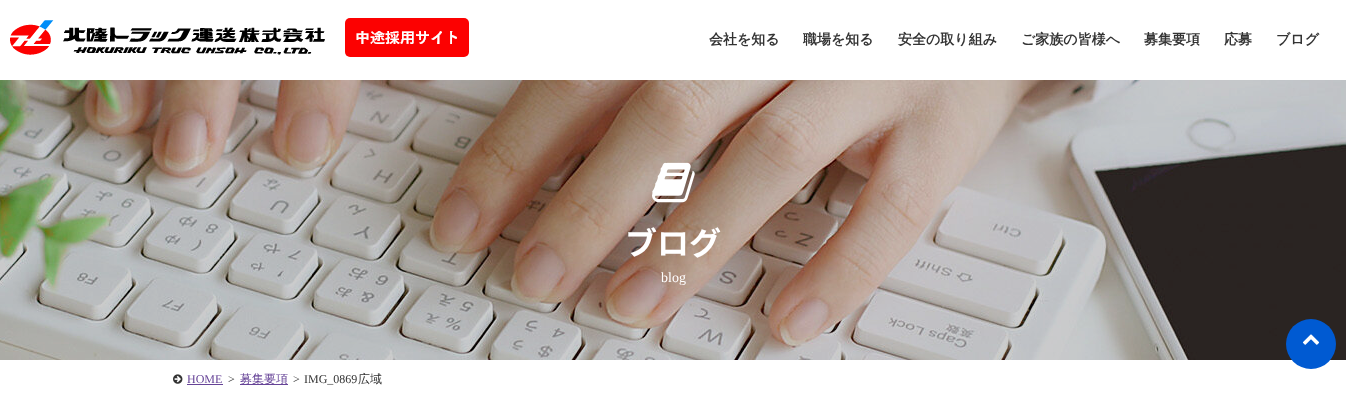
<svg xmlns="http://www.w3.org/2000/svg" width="1346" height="409">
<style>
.a{font:bold 14px WenQuanYi Zen Hei;fill:#333}
.b{font:bold 32px Noto Sans JP;fill:#fff}
.c{font:14px Liberation Serif;fill:#fff}
.d{font:12px Liberation Serif;fill:#664397}
.e{font:12px Liberation Serif;fill:#333}
.f{font:500 12px WenQuanYi Zen Hei;fill:#664397}
.g{font:500 12px WenQuanYi Zen Hei;fill:#333}
</style>
<rect width="100%" height="100%" fill="#fff"/>
<image href="1.png" x="10" y="18" width="459" height="39"/>
<image href="2.png" x="0" y="80" width="1346" height="280"/>
<image href="3.png" x="652" y="162" width="43" height="41"/>
<image href="4.png" x="173" y="374" width="10" height="10"/>
<path fill="#664397" d="M187 384h36v1H187z"/>
<path fill="#664397" d="M240 384h48v1H240z"/>
<circle fill="#005ad2" cx="1311" cy="344" r="25"/>
<image href="5.png" x="1302" y="334" width="18" height="11"/>
<text class="a" x="709" y="44">会社を知る</text>
<text class="a" x="803" y="44">職場を知る</text>
<text class="a" x="898" y="44">安全の取り組み</text>
<text class="a" x="1021" y="44">ご家族の皆様へ</text>
<text class="a" x="1144" y="44">募集要項</text>
<text class="a" x="1224" y="44">応募</text>
<text class="a" x="1276" y="44">ブログ</text>
<text class="b" x="625" y="255">ブログ</text>
<text class="c" x="661" y="282">blog</text>
<text class="d" x="187" y="383">HOME</text>
<text class="e" x="228" y="383">&gt;</text>
<text class="f" x="240" y="383">募集要項</text>
<text class="e" x="293" y="383">&gt;</text>
<text class="e" x="304" y="383">IMG_0869</text>
<text class="g" x="358" y="383">広域</text>
</svg>
